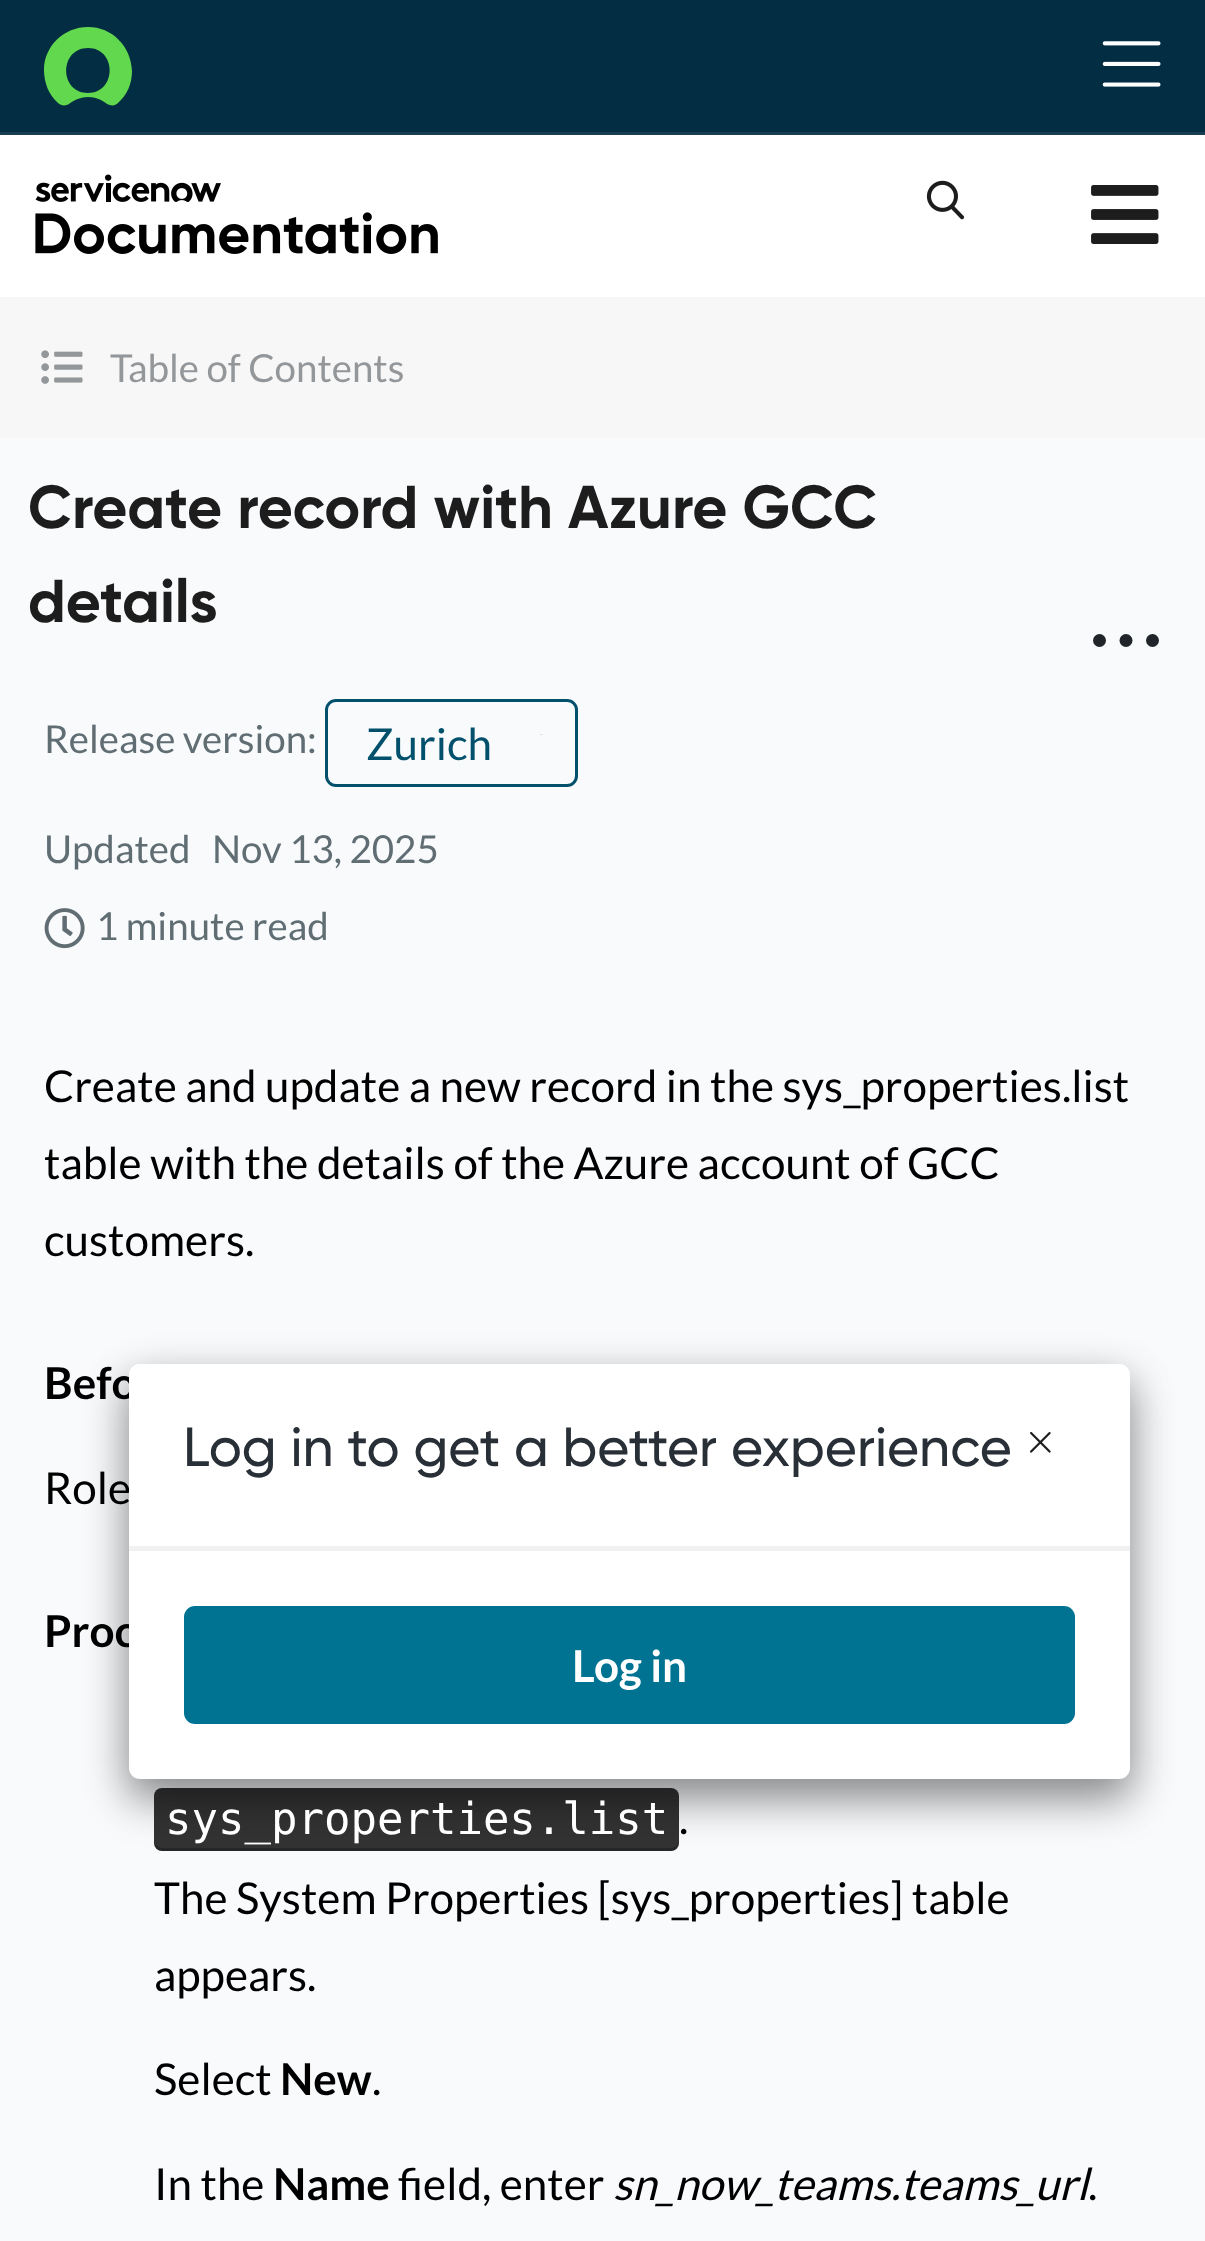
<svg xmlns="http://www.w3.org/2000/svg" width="1205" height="2241">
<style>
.a{font:38.5px Lato;fill:#93979a}
.b{font:bold 60.5px Gilroy;fill:#1d1d1d}
.c{font:38.5px Lato;fill:#606e74}
.d{font:44px Lato;fill:#02506b}
.e{font:44px Lato;fill:#000}
.f{font:bold 44px Lato;fill:#000}
.g{font:44px DejaVu Sans Mono;fill:#fff}
.h{font:italic 44px Lato;fill:#000}
.i{font:500 55px Gilroy;fill:#282f36}
.j{font:bold 44px Lato;fill:#fff}
</style>
<rect width="100%" height="100%" fill="#fff"/>
<path fill="#032d42" d="M0 0h1205v132H0z"/>
<path fill="#173e51" d="M0 132h1205v3H0z"/>
<path fill="#62d84e" fill-rule="evenodd" d="M88 27c-24 0-44 19-44 43c0 13 5 25 14 33c3 3 8 3 11 1c5-4 12-7 19-7c8 0 14 3 19 7c4 2 8 2 11-1c9-8 14-19 14-32c-1-25-20-44-44-44m0 66c-29 0-29-45 0-45c29 0 29 45 0 45z"/>
<image href="1.png" x="1102" y="41" width="59" height="46"/>
<image href="2.png" x="35" y="174" width="403" height="80"/>
<image href="3.png" x="926" y="180" width="39" height="40"/>
<image href="4.png" x="1091" y="185" width="68" height="59"/>
<path fill="#f8fafc" d="M0 437h1205v1804H0z"/>
<path fill="#f7f7f7" d="M0 297h1205v140H0z"/>
<image href="5.png" x="41" y="350" width="42" height="34"/>
<circle fill="#212529" cx="1099.5" cy="640.5" r="6.5"/>
<circle fill="#212529" cx="1126" cy="640.5" r="6.5"/>
<circle fill="#212529" cx="1152.5" cy="640.5" r="6.5"/>
<rect fill="none" stroke="#02506b" stroke-width="3" x="326.5" y="700.5" width="250" height="85" rx="9.5"/>
<image href="6.png" x="540" y="734" width="3" height="1"/>
<image href="7.png" x="44" y="908" width="41" height="41"/>
<rect fill="#333" x="154" y="1788" width="525" height="63" rx="8"/>
<path fill="#00000040" d="M154 1840v3c0 4 4 8 8 8h509c4 0 8-4 8-8v-3c0 4-3 8-8 8h-509c-4 0-8-4-8-8z"/>
<rect fill="#00000040" filter="blur(20.5px)" x="129" y="1378" width="1001" height="415" rx="11"/>
<rect fill="#00000045" filter="blur(22px)" x="129" y="1386" width="1001" height="415" rx="11"/>
<text class="a" x="110" y="382">Table of Contents</text>
<text class="b" x="28" y="528">Create record with Azure GCC</text>
<text class="b" x="28" y="622">details</text>
<text class="c" x="44" y="753">Release version:</text>
<text class="d" x="366" y="760">Zurich</text>
<text class="c" x="44" y="863">Updated</text>
<text class="c" x="212" y="863">Nov 13, 2025</text>
<text class="c" x="96" y="940">1 minute read</text>
<text class="e" x="44" y="1102">Create and update a new record in the sys_properties.list</text>
<text class="e" x="44" y="1179">table with the details of the Azure account of GCC</text>
<text class="e" x="44" y="1256">customers.</text>
<text class="f" x="44" y="1399">Befo</text>
<text class="e" x="44" y="1504">Role</text>
<text class="f" x="44" y="1647">Proc</text>
<text class="g" x="165" y="1834">sys_properties.list</text>
<text class="e" x="679" y="1834">.</text>
<text class="e" x="154" y="1914">The System Properties [sys_properties] table</text>
<text class="e" x="154" y="1991">appears.</text>
<text class="e" x="154" y="2095">Select</text>
<text class="f" x="280" y="2095">New</text>
<text class="e" x="372" y="2095">.</text>
<text class="e" x="154" y="2200">In the</text>
<text class="f" x="273" y="2200">Name</text>
<text class="e" x="398" y="2200">field, enter</text>
<text class="h" x="613" y="2200">sn_now_teams.teams_url</text>
<text class="e" x="1088" y="2200">.</text>
<rect fill="#fff" x="129" y="1364" width="1001" height="415" rx="11"/>
<path fill="#fff" d="M140 1364h979c6 0 11 5 11 11v173h-1001v-173c0-6 5-11 11-11z"/>
<path fill="#f1f1f1" d="M129 1546h1001v5H129z"/>
<text class="i" x="183" y="1466">Log in to get a better experience</text>
<image href="8.png" x="1030" y="1432" width="21" height="21"/>
<rect fill="#007393" x="184" y="1606" width="891" height="118" rx="11"/>
<text class="j" x="572" y="1682">Log in</text>
</svg>
